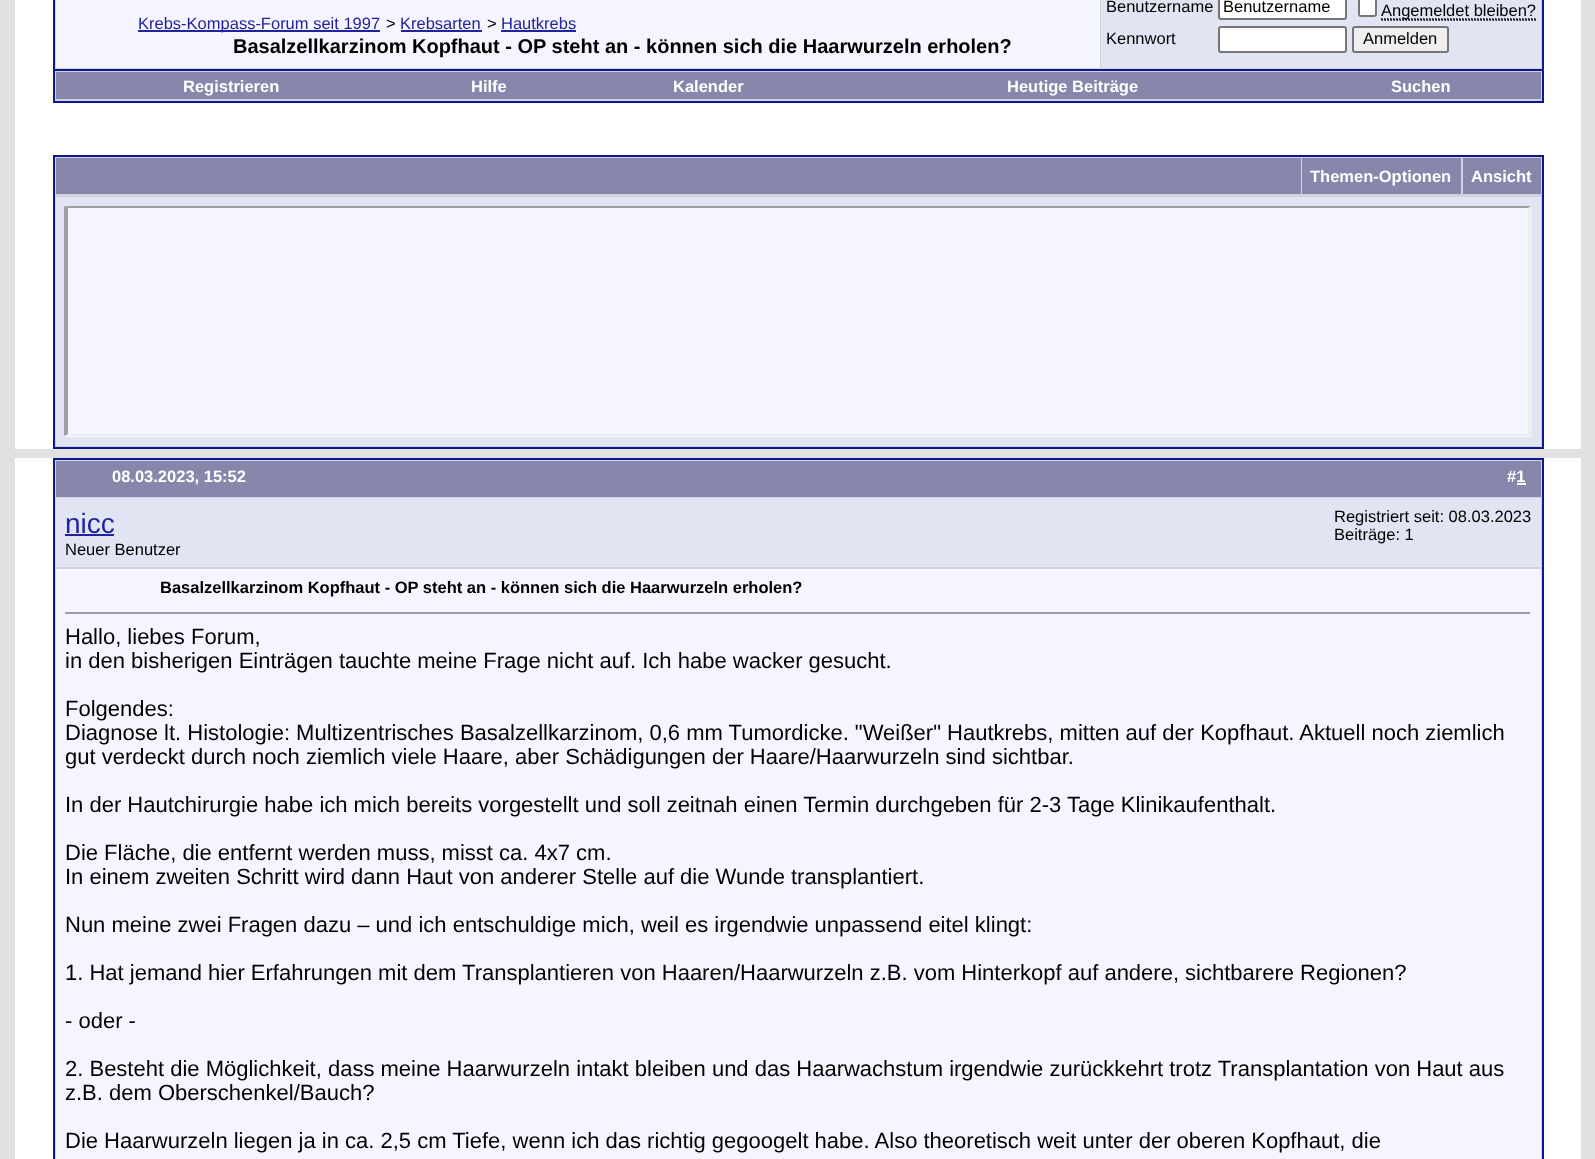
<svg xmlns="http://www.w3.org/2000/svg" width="1595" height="1159">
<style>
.a{font:16.5px Liberation Sans;fill:#22229c}
.b{font:16.5px Liberation Sans;fill:#000}
.c{font:bold 20px Liberation Sans;fill:#000}
.d{font:bold 16.5px Liberation Sans;fill:#fff}
.e{font:28px Liberation Sans;fill:#22229c}
.f{font:bold 16.5px Liberation Sans;fill:#000}
.g{font:22px Liberation Sans;fill:#000}
</style>
<rect width="100%" height="100%" fill="#e1e1e2"/>
<path fill="#fff" d="M15 0h1566v449H15z"/>
<path fill="#d1d1e1" stroke="#0b198c" stroke-width="2" d="M54 -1h1489v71H54z"/>
<path fill="#f5f5ff" d="M56 0h1044v68H56z"/>
<path fill="#22229c" d="M138 30h242v2H138z"/>
<path fill="#22229c" d="M401 30h81v2H401z"/>
<path fill="#22229c" d="M501 30h75v2H501z"/>
<path fill="#e1e4f2" d="M1101 0h440v68H1101z"/>
<rect fill="#fff" stroke="#767676" stroke-width="2" x="1219" y="-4" width="127" height="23" rx="2"/>
<rect fill="#fff" stroke="#767676" stroke-width="2" x="1359" y="-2" width="17" height="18" rx="2"/>
<path fill="none" stroke="#000" stroke-width="1.5" stroke-dasharray="1.5 1.5" d="M1381.5 20h154.5"/>
<path fill="none" stroke="#000" stroke-width="1.5" stroke-dasharray="1.5 1.5" d="M1381 19h155"/>
<rect fill="#fff" stroke="#767676" stroke-width="2" x="1219" y="27" width="127" height="25" rx="2"/>
<rect fill="#efefef" stroke="#767676" stroke-width="2" x="1353" y="27" width="95" height="25" rx="2"/>
<path fill="#d1d1e1" d="M55 71h1487v30H55z"/>
<path fill="#0b198c" d="M1542 71h2v31H1542z"/>
<path fill="#0b198c" d="M53 101h1491v2H53z"/>
<path fill="#0b198c" d="M53 71h2v31H53z"/>
<path fill="#8787ab" d="M56 72h1485v27H56z"/>
<path fill="#d1d1e1" d="M55 157h1487v290H55z"/>
<path fill="#0b198c" d="M53 155h1491v2H53z"/>
<path fill="#0b198c" d="M1542 155h2v294H1542z"/>
<path fill="#0b198c" d="M53 155h2v40H53z"/>
<path fill="#8787ab" d="M56 158h1245v36H56z"/>
<path fill="#8787ab" d="M1302 158h159v36H1302z"/>
<path fill="#8787ab" d="M1463 158h78v36H1463z"/>
<path fill="#0b198c" d="M53 447h1491v2H53z"/>
<path fill="#0b198c" d="M53 195h2v254H53z"/>
<path fill="#e1e4f2" d="M56 197h1485v249H56z"/>
<path fill="#f5f5ff" d="M65 206h1467v231H65z"/>
<path fill="#9f9f9f" d="M64 206h1468l-4 2h-1460z"/>
<path fill="#eee" d="M1532 206v230l-4-2v-226z"/>
<path fill="#eee" d="M1532 436h-1468l4-2h1460z"/>
<path fill="#9f9f9f" d="M64 436v-230l4 2v226z"/>
<path fill="#fff" d="M15 458h1566v701H15z"/>
<path fill="#d1d1e1" stroke="#0b198c" stroke-width="2" d="M54 459h1489v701H54z"/>
<path fill="#8787ab" d="M56 461h1485v36H56z"/>
<path fill="#fff" d="M1517 483h9v2H1517z"/>
<path fill="#e1e4f2" d="M56 498h1485v69H56z"/>
<path fill="#22229c" d="M65 534h49v2H65z"/>
<path fill="#f5f5ff" d="M56 569h1485v590H56z"/>
<path fill="#9f9f9f" d="M65 612h1467v2H65z"/>
<path fill="#eee" d="M1530 612h2v2H1530z"/>
<text class="a" x="138" y="29">Krebs-Kompass-Forum seit 1997</text>
<text class="b" x="386" y="29">&gt;</text>
<text class="a" x="400" y="29">Krebsarten</text>
<text class="b" x="487" y="29">&gt;</text>
<text class="a" x="501" y="29">Hautkrebs</text>
<text class="c" x="233" y="53">Basalzellkarzinom Kopfhaut - OP steht an - können sich die Haarwurzeln erholen?</text>
<text class="b" x="1106" y="12">Benutzername</text>
<text class="b" x="1223" y="12">Benutzername</text>
<text class="b" x="1381" y="16">Angemeldet bleiben?</text>
<text class="b" x="1106" y="44">Kennwort</text>
<text class="b" x="1363" y="44">Anmelden</text>
<text class="d" x="183" y="92">Registrieren</text>
<text class="d" x="471" y="92">Hilfe</text>
<text class="d" x="673" y="92">Kalender</text>
<text class="d" x="1007" y="92">Heutige Beiträge</text>
<text class="d" x="1391" y="92">Suchen</text>
<text class="d" x="1310" y="182">Themen-Optionen</text>
<text class="d" x="1471" y="182">Ansicht</text>
<text class="d" x="112" y="482">08.03.2023, 15:52</text>
<text class="d" x="1507" y="482">#1</text>
<text class="e" x="65" y="533">nicc</text>
<text class="b" x="65" y="555">Neuer Benutzer</text>
<text class="b" x="1334" y="522">Registriert seit: 08.03.2023</text>
<text class="b" x="1334" y="540">Beiträge: 1</text>
<text class="f" x="160" y="593">Basalzellkarzinom Kopfhaut - OP steht an - können sich die Haarwurzeln erholen?</text>
<text class="g" x="65" y="644">Hallo, liebes Forum,</text>
<text class="g" x="65" y="668">in den bisherigen Einträgen tauchte meine Frage nicht auf. Ich habe wacker gesucht.</text>
<text class="g" x="65" y="716">Folgendes:</text>
<text class="g" x="65" y="740">Diagnose lt. Histologie: Multizentrisches Basalzellkarzinom, 0,6 mm Tumordicke. "Weißer" Hautkrebs, mitten auf der Kopfhaut. Aktuell noch ziemlich</text>
<text class="g" x="65" y="764">gut verdeckt durch noch ziemlich viele Haare, aber Schädigungen der Haare/Haarwurzeln sind sichtbar.</text>
<text class="g" x="65" y="812">In der Hautchirurgie habe ich mich bereits vorgestellt und soll zeitnah einen Termin durchgeben für 2-3 Tage Klinikaufenthalt.</text>
<text class="g" x="65" y="860">Die Fläche, die entfernt werden muss, misst ca. 4x7 cm.</text>
<text class="g" x="65" y="884">In einem zweiten Schritt wird dann Haut von anderer Stelle auf die Wunde transplantiert.</text>
<text class="g" x="65" y="932">Nun meine zwei Fragen dazu – und ich entschuldige mich, weil es irgendwie unpassend eitel klingt:</text>
<text class="g" x="65" y="980">1. Hat jemand hier Erfahrungen mit dem Transplantieren von Haaren/Haarwurzeln z.B. vom Hinterkopf auf andere, sichtbarere Regionen?</text>
<text class="g" x="65" y="1028">- oder -</text>
<text class="g" x="65" y="1076">2. Besteht die Möglichkeit, dass meine Haarwurzeln intakt bleiben und das Haarwachstum irgendwie zurückkehrt trotz Transplantation von Haut aus</text>
<text class="g" x="65" y="1100">z.B. dem Oberschenkel/Bauch?</text>
<text class="g" x="65" y="1148">Die Haarwurzeln liegen ja in ca. 2,5 cm Tiefe, wenn ich das richtig gegoogelt habe. Also theoretisch weit unter der oberen Kopfhaut, die</text>
</svg>
